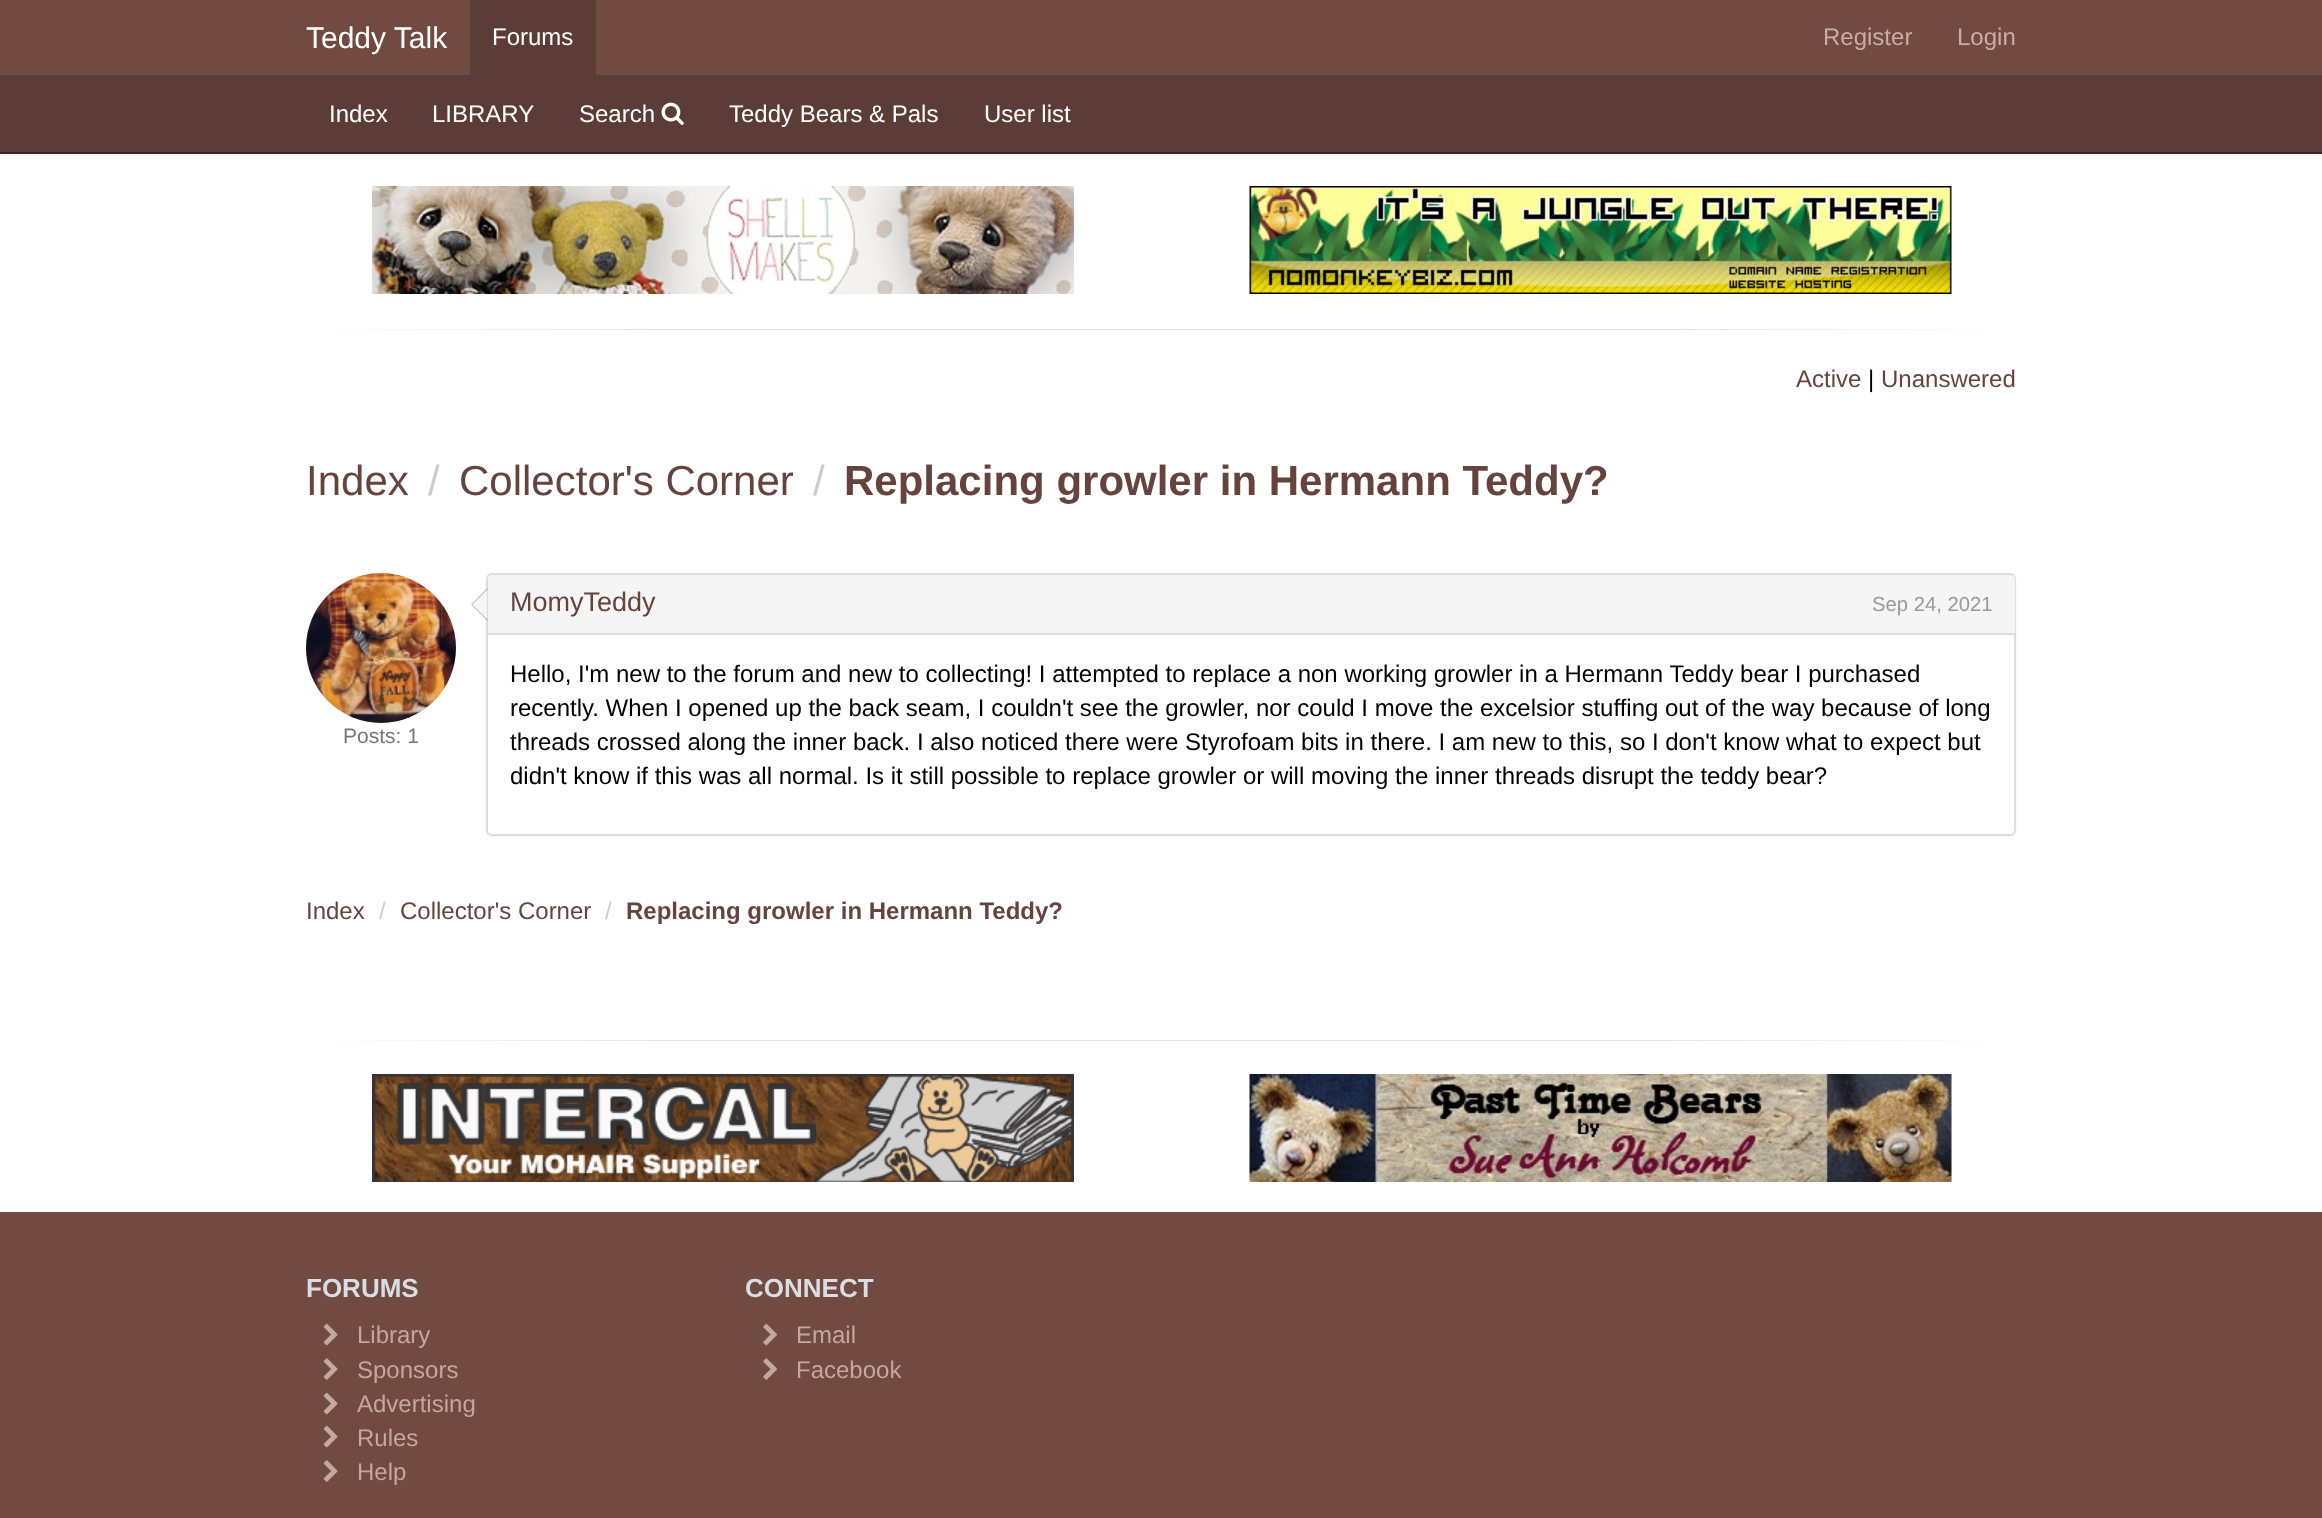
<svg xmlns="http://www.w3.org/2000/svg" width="2322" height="1518">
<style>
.a{font:30px Liberation Sans;fill:#fff}
.b{font:24px Liberation Sans;fill:#fff}
.c{font:24px Liberation Sans;fill:#c9ada8}
.d{font:24px Liberation Sans;fill:#66443d}
.e{font:24px Liberation Sans;fill:#000}
.f{font:42px Liberation Sans;fill:#66443d}
.g{font:42px Liberation Sans;fill:#ccc}
.h{font:bold 42px Liberation Sans;fill:#66443d}
.i{font:21px Liberation Sans;fill:#777}
.j{font:27px Liberation Sans;fill:#66443d}
.k{font:20.25px Liberation Sans;fill:#999}
.l{font:24px Liberation Sans;fill:#ccc}
.m{font:bold 24px Liberation Sans;fill:#66443d}
.n{font:bold 26px Liberation Sans;fill:#d9dee4}
.o{font:24px Liberation Sans;fill:#c3a7a1}
</style>
<defs>
<linearGradient id="g1" gradientUnits="userSpaceOnUse" x1="306" y1="329" x2="2016" y2="329"><stop offset="0" stop-color="#fff"/><stop offset="0.2" stop-color="#e4e4e4"/><stop offset="0.8" stop-color="#e4e4e4"/><stop offset="1" stop-color="#fff"/></linearGradient>
<linearGradient id="g2" gradientUnits="userSpaceOnUse" x1="306" y1="1040" x2="2016" y2="1040"><stop offset="0" stop-color="#fff"/><stop offset="0.2" stop-color="#e4e4e4"/><stop offset="0.8" stop-color="#e4e4e4"/><stop offset="1" stop-color="#fff"/></linearGradient>
</defs>
<rect width="100%" height="100%" fill="#fff"/>
<path fill="#714a42" d="M0 0h2322v75H0z"/>
<path fill="#5c3c36" d="M470 0h126v75H470z"/>
<path fill="#5c3c36" d="M0 75h2322v77H0z"/>
<path fill="#3c2723" d="M0 152h2322v2H0z"/>
<image href="1.png" x="661" y="102" width="23" height="23"/>
<image href="2.png" x="372" y="186" width="702" height="108"/>
<image href="3.png" x="1249" y="186" width="703" height="108"/>
<path fill="url(#g1)" d="M338 329h1646v1H338z"/>
<image href="4.png" x="306" y="573" width="150" height="150"/>
<rect fill="#0000000d" filter="blur(1px)" x="486" y="575" width="1530" height="262" rx="6"/>
<rect fill="#fff" stroke="#ddd" stroke-width="2" x="487" y="574" width="1528" height="261" rx="5"/>
<path fill="#00000040" d="M487.5 588v33l-16.5-16.5z"/>
<path fill="#f5f5f5" d="M487.5 589.5v30l-15-15z"/>
<path fill="#f5f5f5" d="M493 575h1517c3 0 5 2 5 5v55h-1527v-55c0-3 2-5 5-5z"/>
<path fill="#ddd" d="M488 633h1527v2H488z"/>
<path fill="url(#g2)" d="M338 1040h1646v1H338z"/>
<image href="5.png" x="372" y="1074" width="702" height="108"/>
<image href="6.png" x="1249" y="1074" width="703" height="108"/>
<path fill="#714a42" d="M0 1212h2322v306H0z"/>
<image href="7.png" x="323" y="1323" width="15" height="23"/>
<image href="8.png" x="323" y="1358" width="15" height="22"/>
<image href="7.png" x="323" y="1392" width="15" height="23"/>
<image href="7.png" x="323" y="1425" width="15" height="23"/>
<image href="8.png" x="323" y="1460" width="15" height="22"/>
<image href="9.png" x="763" y="1323" width="14" height="23"/>
<image href="10.png" x="763" y="1358" width="14" height="22"/>
<text class="a" x="306" y="48">Teddy Talk</text>
<text class="b" x="492" y="45">Forums</text>
<text class="c" x="1823" y="45">Register</text>
<text class="c" x="1957" y="45">Login</text>
<text class="b" x="329" y="122">Index</text>
<text class="b" x="432" y="122">LIBRARY</text>
<text class="b" x="579" y="122">Search</text>
<text class="b" x="729" y="122">Teddy Bears &amp; Pals</text>
<text class="b" x="984" y="122">User list</text>
<text class="d" x="1796" y="387">Active</text>
<text class="e" x="1868" y="387">|</text>
<text class="d" x="1881" y="387">Unanswered</text>
<text class="f" x="306" y="495">Index</text>
<text class="g" x="428" y="495">/</text>
<text class="f" x="459" y="495">Collector's Corner</text>
<text class="g" x="813" y="495">/</text>
<text class="h" x="844" y="495">Replacing growler in Hermann Teddy?</text>
<text class="i" x="343" y="743">Posts: 1</text>
<text class="j" x="510" y="611">MomyTeddy</text>
<text class="k" x="1872" y="611">Sep 24, 2021</text>
<text class="e" x="510" y="682">Hello, I'm new to the forum and new to collecting! I attempted to replace a non working growler in a Hermann Teddy bear I purchased</text>
<text class="e" x="510" y="716">recently. When I opened up the back seam, I couldn't see the growler, nor could I move the excelsior stuffing out of the way because of long</text>
<text class="e" x="510" y="750">threads crossed along the inner back. I also noticed there were Styrofoam bits in there. I am new to this, so I don't know what to expect but</text>
<text class="e" x="510" y="784">didn't know if this was all normal. Is it still possible to replace growler or will moving the inner threads disrupt the teddy bear?</text>
<text class="d" x="306" y="919">Index</text>
<text class="l" x="379" y="919">/</text>
<text class="d" x="400" y="919">Collector's Corner</text>
<text class="l" x="605" y="919">/</text>
<text class="m" x="626" y="919">Replacing growler in Hermann Teddy?</text>
<text class="n" x="306" y="1297">FORUMS</text>
<text class="o" x="357" y="1343">Library</text>
<text class="o" x="357" y="1378">Sponsors</text>
<text class="o" x="357" y="1412">Advertising</text>
<text class="o" x="357" y="1446">Rules</text>
<text class="o" x="357" y="1480">Help</text>
<text class="n" x="745" y="1297">CONNECT</text>
<text class="o" x="796" y="1343">Email</text>
<text class="o" x="796" y="1378">Facebook</text>
</svg>
